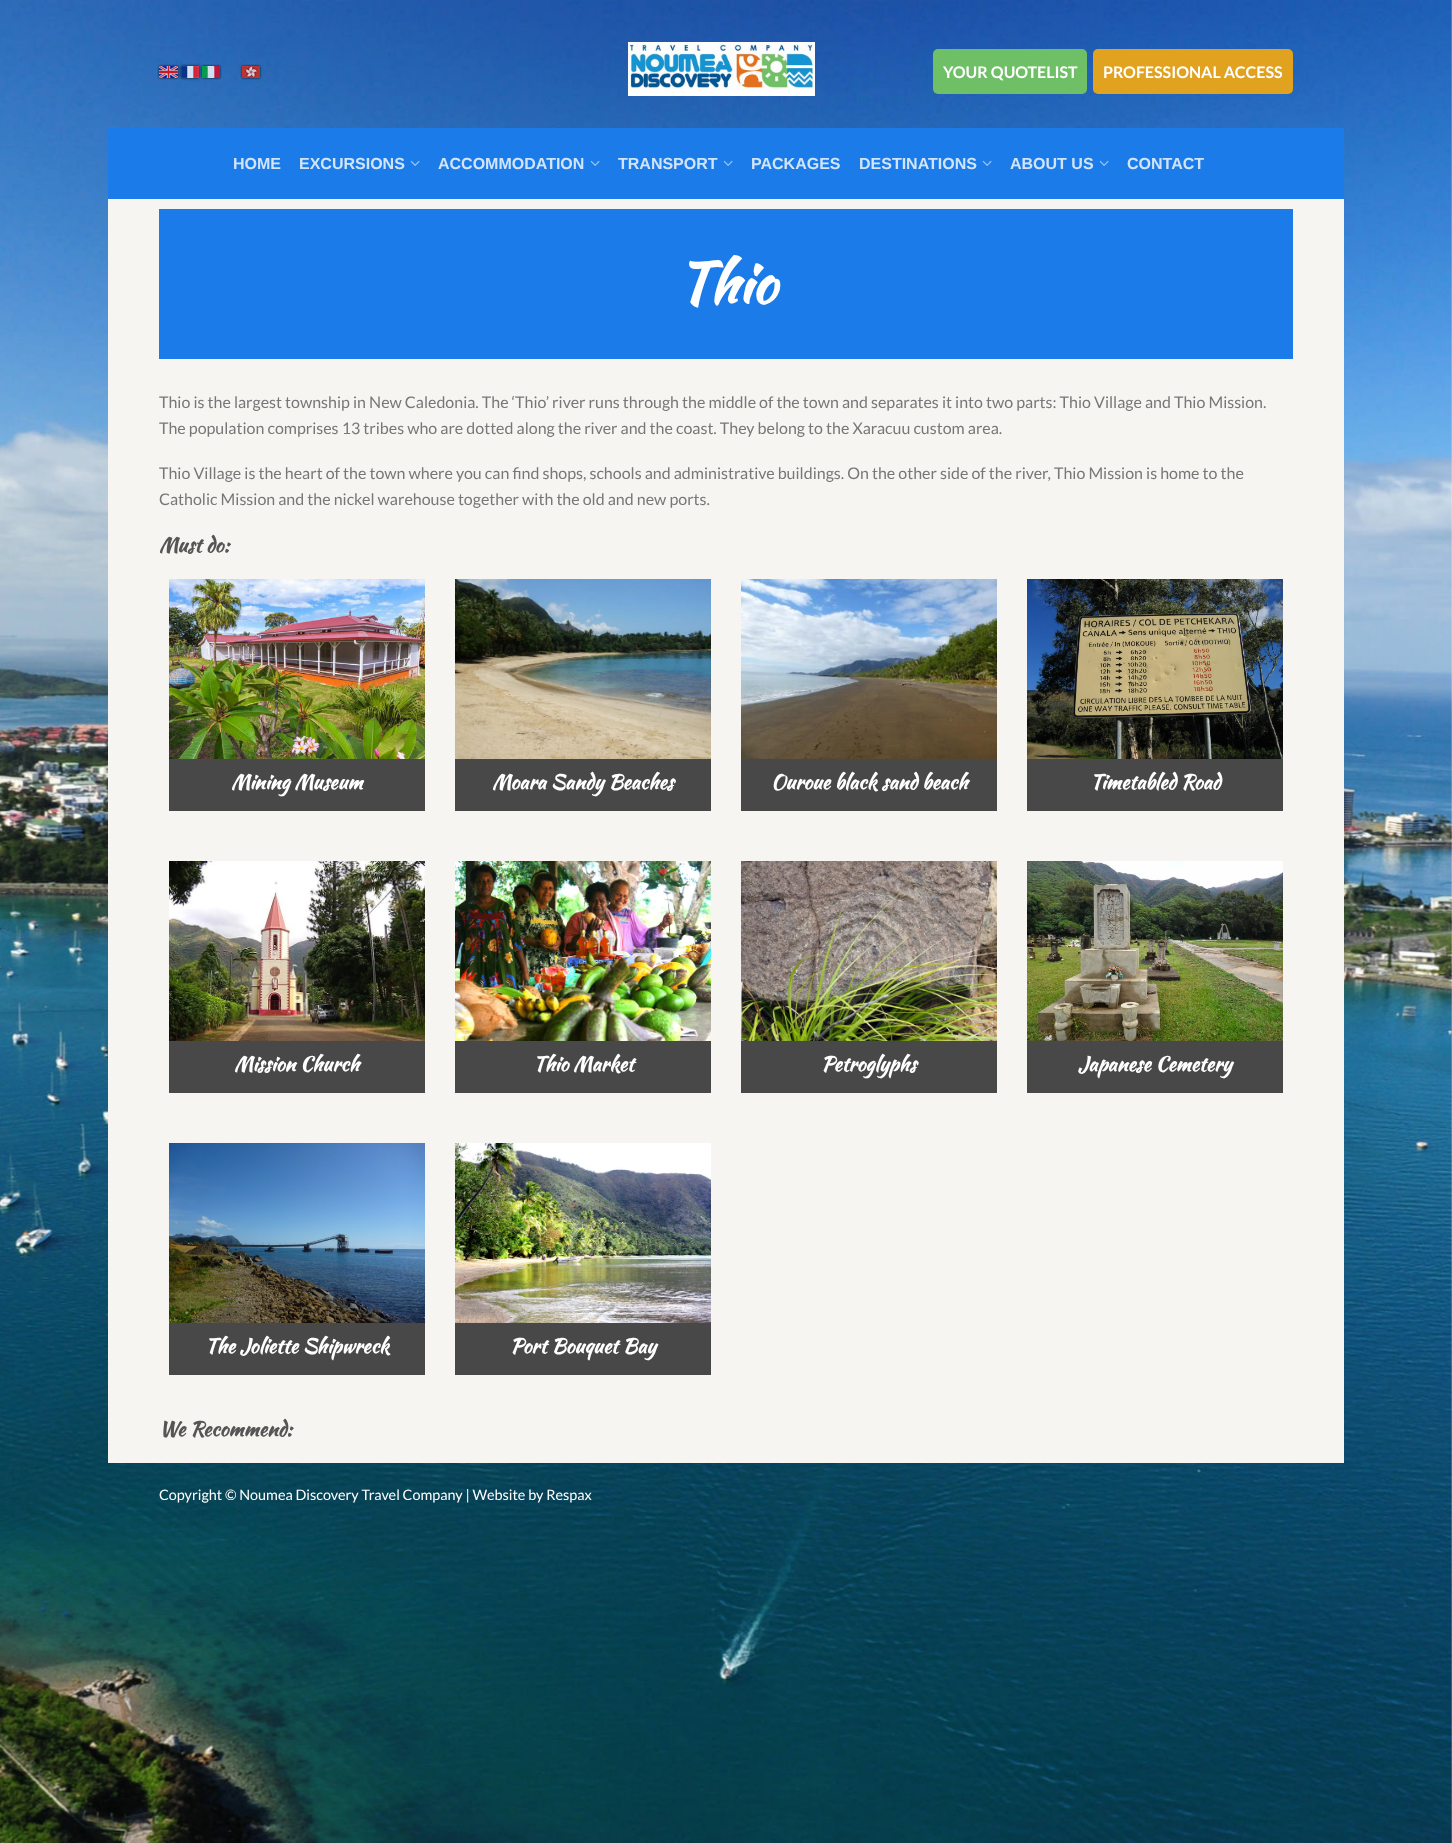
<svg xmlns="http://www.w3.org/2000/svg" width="1452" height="1843">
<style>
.a{font:bold 16px Lato;fill:#fff}
.b{font:bold 16px Liberation Sans;fill:#d1e5fa}
.c{font:bold 56px Kaushan Script;fill:#fff}
.d{font:16px Lato;fill:#777}
.e{font:bold 20px Kaushan Script;fill:#555}
.f{font:bold 20px Kaushan Script;fill:#fff}
.g{font:14.4px Lato;fill:#fff}
</style>
<defs>
<clipPath id="clip1"><path d="M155 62h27v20h-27zm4 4h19v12h-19z" clip-rule="evenodd"/></clipPath>
<clipPath id="clip2"><path d="M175 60h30v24h-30zm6 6h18v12h-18z" clip-rule="evenodd"/></clipPath>
<clipPath id="clip3"><path d="M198 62h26v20h-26zm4 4h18v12h-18z" clip-rule="evenodd"/></clipPath>
<clipPath id="clip4"><path d="M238 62h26v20h-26zm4 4h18v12h-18z" clip-rule="evenodd"/></clipPath>
</defs>
<rect width="100%" height="100%" fill="#fff"/>
<image href="1.png" x="0" y="0" width="1452" height="1843"/>
<g clip-path="url(#clip1)">
<path fill="#000000cc" filter="blur(1px)" d="M159 66h19v12H159z"/>
</g>
<image href="2.png" x="159" y="66" width="19" height="12"/>
<g clip-path="url(#clip2)">
<path fill="#000000cc" filter="blur(1.5px)" d="M181 66h18v12H181z"/>
</g>
<image href="3.png" x="181" y="66" width="18" height="12"/>
<g clip-path="url(#clip3)">
<path fill="#000000cc" filter="blur(1px)" d="M202 66h18v12H202z"/>
</g>
<image href="4.png" x="202" y="66" width="18" height="12"/>
<g clip-path="url(#clip4)">
<path fill="#000000cc" filter="blur(1px)" d="M242 66h18v12H242z"/>
</g>
<image href="5.png" x="242" y="66" width="18" height="12"/>
<image href="6.png" x="628" y="42" width="187" height="54"/>
<rect fill="#6fbf67" x="933" y="49" width="154" height="45" rx="5"/>
<rect fill="#e1a220" x="1093" y="49" width="200" height="45" rx="5"/>
<path fill="#1b7be8" d="M108 128h1236v71H108z"/>
<image href="7.png" x="410" y="160" width="10" height="6"/>
<image href="7.png" x="590" y="160" width="10" height="6"/>
<image href="7.png" x="723" y="160" width="10" height="6"/>
<image href="7.png" x="982" y="160" width="10" height="6"/>
<image href="7.png" x="1099" y="160" width="10" height="6"/>
<path fill="#f7f5f2" d="M108 199h1236v1264H108z"/>
<path fill="#1b7be8" d="M159 209h1134v150H159z"/>
<path fill="#484848" d="M169 759h256v52H169z"/>
<image href="8.png" x="169" y="579" width="256" height="180"/>
<path fill="#484848" d="M455 759h256v52H455z"/>
<image href="9.png" x="455" y="579" width="256" height="180"/>
<path fill="#484848" d="M741 759h256v52H741z"/>
<image href="10.png" x="741" y="579" width="256" height="180"/>
<path fill="#484848" d="M1027 759h256v52H1027z"/>
<image href="11.png" x="1027" y="579" width="256" height="180"/>
<path fill="#484848" d="M169 1041h256v52H169z"/>
<image href="12.png" x="169" y="861" width="256" height="180"/>
<path fill="#484848" d="M455 1041h256v52H455z"/>
<image href="13.png" x="455" y="861" width="256" height="180"/>
<path fill="#484848" d="M741 1041h256v52H741z"/>
<image href="14.png" x="741" y="861" width="256" height="180"/>
<path fill="#484848" d="M1027 1041h256v52H1027z"/>
<image href="15.png" x="1027" y="861" width="256" height="180"/>
<path fill="#484848" d="M169 1323h256v52H169z"/>
<image href="16.png" x="169" y="1143" width="256" height="180"/>
<path fill="#484848" d="M455 1323h256v52H455z"/>
<image href="17.png" x="455" y="1143" width="256" height="180"/>
<text class="a" x="943" y="78">YOUR QUOTELIST</text>
<text class="a" x="1103" y="78">PROFESSIONAL ACCESS</text>
<text class="b" x="233" y="169">HOME</text>
<text class="b" x="299" y="169">EXCURSIONS</text>
<text class="b" x="438" y="169">ACCOMMODATION</text>
<text class="b" x="618" y="169">TRANSPORT</text>
<text class="b" x="751" y="169">PACKAGES</text>
<text class="b" x="859" y="169">DESTINATIONS</text>
<text class="b" x="1010" y="169">ABOUT US</text>
<text class="b" x="1127" y="169">CONTACT</text>
<text class="c" x="677" y="303">Thio</text>
<text class="d" x="159" y="408">Thio is the largest township in New Caledonia. The ‘Thio’ river runs through the middle of the town and separates it into two parts: Thio Village and Thio Mission.</text>
<text class="d" x="159" y="434">The population comprises 13 tribes who are dotted along the river and the coast. They belong to the Xaracuu custom area.</text>
<text class="d" x="159" y="479">Thio Village is the heart of the town where you can find shops, schools and administrative buildings. On the other side of the river, Thio Mission is home to the</text>
<text class="d" x="159" y="505">Catholic Mission and the nickel warehouse together with the old and new ports.</text>
<text class="e" x="159" y="552">Must do:</text>
<text class="f" x="231" y="789">Mining Museum</text>
<text class="f" x="492" y="789">Moara Sandy Beaches</text>
<text class="f" x="771" y="789">Ouroue black sand beach</text>
<text class="f" x="1090" y="789">Timetabled Road</text>
<text class="f" x="234" y="1071">Mission Church</text>
<text class="f" x="533" y="1071">Thio Market</text>
<text class="f" x="821" y="1071">Petroglyphs</text>
<text class="f" x="1078" y="1071">Japanese Cemetery</text>
<text class="f" x="205" y="1353">The Joliette Shipwreck</text>
<text class="f" x="510" y="1353">Port Bouquet Bay</text>
<text class="e" x="159" y="1436">We Recommend:</text>
<text class="g" x="159" y="1500">Copyright © Noumea Discovery Travel Company | Website by Respax</text>
</svg>
